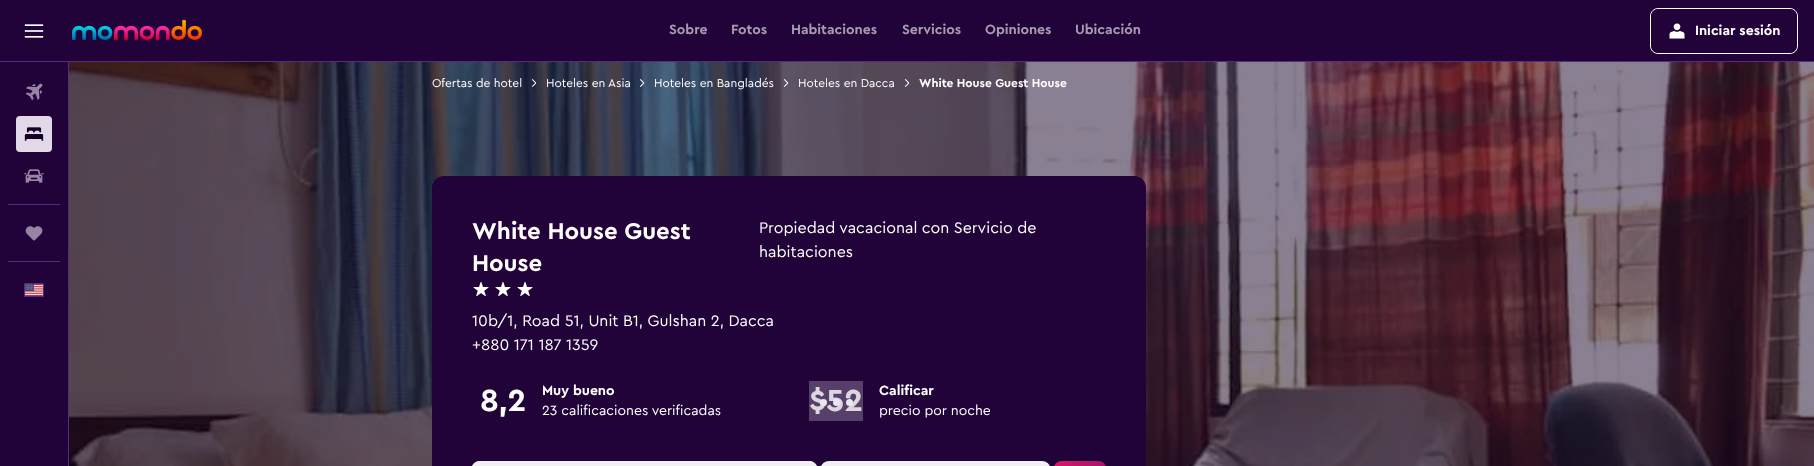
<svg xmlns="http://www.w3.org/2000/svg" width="1814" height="466">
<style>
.a{font:bold 14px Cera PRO;fill:#a79bb0}
.b{font:bold 14px Cera PRO;fill:#fff}
.c{font:12px Cera PRO;fill:#fff}
.d{font:bold 12px Cera PRO;fill:#fff}
.e{font:bold 24px Cera PRO;fill:#fff}
.f{font:16px Cera PRO;fill:#fff}
.g{font:bold 32px Cera PRO;fill:#fff}
.h{font:14px Cera PRO;fill:#fff}
</style>
<defs>
<linearGradient id="g1" gradientUnits="userSpaceOnUse" x1="1054" y1="461" x2="1106" y2="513"><stop offset="0" stop-color="#de1666"/><stop offset="1" stop-color="#73146f"/></linearGradient>
</defs>
<rect width="100%" height="100%" fill="#21033a"/>
<path fill="#572980" d="M0 61h1814v1H0z"/>
<image href="1.png" x="24" y="24" width="20" height="14"/>
<image href="2.png" x="72" y="20" width="130" height="20"/>
<rect fill="none" stroke="#fff" x="1650.5" y="8.5" width="147" height="45" rx="7.5"/>
<rect fill="#21033a" x="1651" y="9" width="146" height="44" rx="8"/>
<image href="3.png" x="1669" y="23" width="16" height="16"/>
<path fill="#572980" d="M68 62h1v404H68z"/>
<image href="4.png" x="25" y="83" width="18" height="18"/>
<rect fill="#e1d9e8" x="16" y="116" width="36" height="36" rx="4"/>
<image href="5.png" x="24" y="127" width="20" height="14"/>
<image href="6.png" x="24" y="169" width="20" height="14"/>
<path fill="#572980" d="M8 204h52v1H8z"/>
<image href="7.png" x="25" y="226" width="18" height="15"/>
<path fill="#572980" d="M8 261h52v1H8z"/>
<path fill="none" stroke="#572980" d="M24.5 283.5h19v13H24.5z"/>
<image href="8.png" x="25" y="284" width="18" height="12"/>
<image href="9.png" x="69" y="62" width="1745" height="404"/>
<image href="10.png" x="531" y="79" width="6" height="8"/>
<image href="11.png" x="639" y="79" width="6" height="8"/>
<image href="12.png" x="783" y="79" width="6" height="8"/>
<image href="13.png" x="904" y="79" width="6" height="8"/>
<rect fill="#21033a" x="432" y="176" width="714" height="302" rx="12"/>
<image href="14.png" x="473" y="281" width="16" height="16"/>
<image href="14.png" x="495" y="281" width="16" height="16"/>
<image href="14.png" x="517" y="281" width="16" height="16"/>
<rect fill="#f3f0f5" x="472" y="461" width="345" height="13" rx="8"/>
<rect fill="#f3f0f5" x="472" y="461" width="169" height="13" rx="8"/>
<rect fill="#f3f0f5" x="647" y="461" width="170" height="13" rx="8"/>
<rect fill="#f3f0f5" x="821" y="461" width="229" height="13" rx="8"/>
<rect fill="url(#g1)" x="1054" y="461" width="52" height="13" rx="8"/>
<text class="a" x="669" y="34">Sobre</text>
<text class="a" x="731" y="34">Fotos</text>
<text class="a" x="791" y="34">Habitaciones</text>
<text class="a" x="902" y="34">Servicios</text>
<text class="a" x="985" y="34">Opiniones</text>
<text class="a" x="1075" y="34">Ubicación</text>
<text class="b" x="1695" y="35">Iniciar sesión</text>
<text class="c" x="432" y="87">Ofertas de hotel</text>
<text class="c" x="546" y="87">Hoteles en Asia</text>
<text class="c" x="654" y="87">Hoteles en Bangladés</text>
<text class="c" x="798" y="87">Hoteles en Dacca</text>
<text class="d" x="919" y="87">White House Guest House</text>
<text class="e" x="472" y="239">White House Guest</text>
<text class="e" x="472" y="271">House</text>
<text class="f" x="759" y="233">Propiedad vacacional con Servicio de</text>
<text class="f" x="759" y="257">habitaciones</text>
<text class="f" x="472" y="326">10b/1, Road 51, Unit B1, Gulshan 2, Dacca</text>
<text class="f" x="472" y="350">+880 171 187 1359</text>
<text class="g" x="480" y="411">8,2</text>
<text class="b" x="542" y="395">Muy bueno</text>
<text class="h" x="542" y="415">23 calificaciones verificadas</text>
<text class="g" x="809" y="411">$52</text>
<path fill="#a79bb066" d="M809 381h54v40H809z"/>
<circle fill="#ebe6ef" cx="849.5" cy="402.5" r="3.5"/>
<circle fill="#ebe6ef" cx="836.5" cy="402.5" r="3.5"/>
<circle fill="#ebe6ef" cx="823.5" cy="402.5" r="3.5"/>
<text class="b" x="879" y="395">Calificar</text>
<text class="h" x="879" y="415">precio por noche</text>
</svg>
